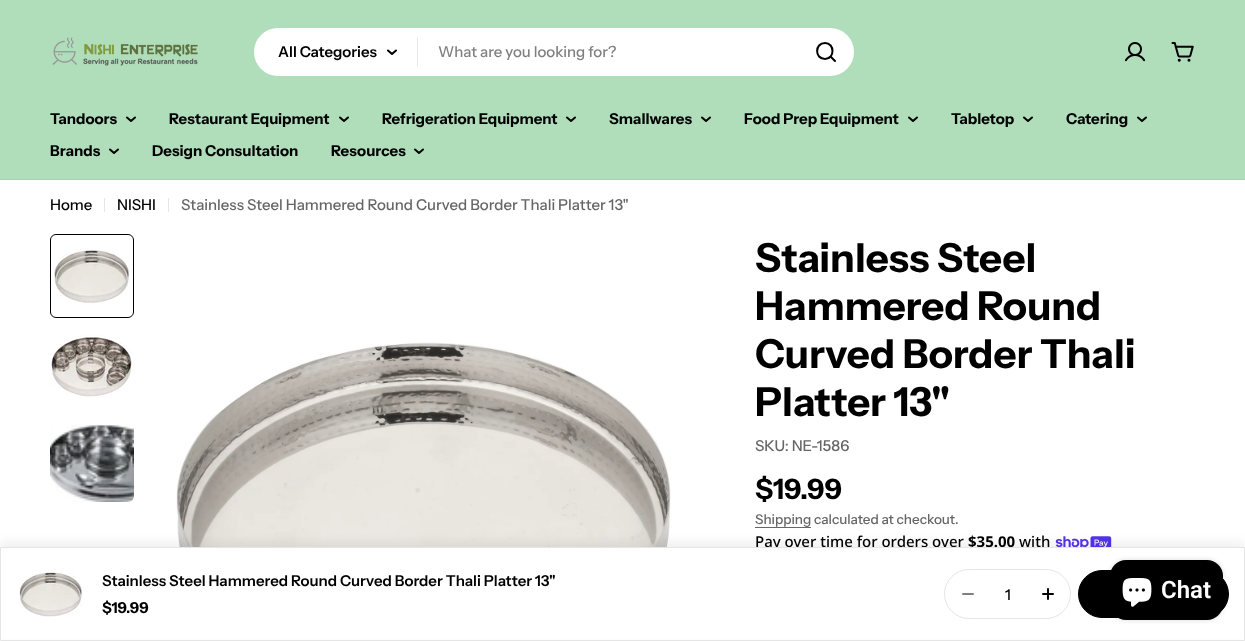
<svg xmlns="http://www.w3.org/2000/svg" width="1245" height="641">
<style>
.a{font:600 15px Instrument Sans;fill:#000}
.b{font:500 15px Instrument Sans;fill:#808080}
.c{font:bold 15px Instrument Sans;fill:#000}
.d{font:500 15px Instrument Sans;fill:#000}
.e{font:500 15px Instrument Sans;fill:#666}
.f{font:bold 40px Instrument Sans;fill:#000}
.g{font:bold 28px Instrument Sans;fill:#000}
.h{font:500 13.5px Instrument Sans;fill:#666}
.i{font:500 15px Noto Sans;fill:#000}
.j{font:bold 15px Noto Sans;fill:#000}
.k{font:600 24px Roboto;fill:#fff}
</style>
<rect width="100%" height="100%" fill="#fff"/>
<path fill="#b0debb" d="M0 0h1245v179H0z"/>
<image href="1.png" x="52" y="37" width="146" height="29"/>
<rect fill="#fff" x="254" y="28" width="600" height="48" rx="24"/>
<path fill="none" stroke="#000" stroke-width="2" stroke-linecap="round" stroke-linejoin="round" d="M396 50.5l-4 3.5l-4-3.5"/>
<path fill="#e6e6e6" d="M417 38h1v28H417z"/>
<path fill="none" stroke="#000" stroke-width="2" stroke-linecap="round" stroke-linejoin="round" d="M825 59c10 0 10-16 0-16c-10.5 0-10.5 16 0 16zm5.5-2.5l4.5 4.5"/>
<image href="2.png" x="1124" y="42" width="22" height="20"/>
<image href="3.png" x="1171" y="42" width="23" height="20"/>
<path fill="#c6bfb1" d="M0 179h1245v1H0z"/>
<path fill="none" stroke="#000" stroke-width="2" stroke-linecap="round" stroke-linejoin="round" d="M135 117.5l-4 3.5l-4-3.5"/>
<path fill="none" stroke="#000" stroke-width="2" stroke-linecap="round" stroke-linejoin="round" d="M348 117.5l-4 3.5l-4-3.5"/>
<path fill="none" stroke="#000" stroke-width="2" stroke-linecap="round" stroke-linejoin="round" d="M575 117.5l-4 3.5l-4-3.5"/>
<path fill="none" stroke="#000" stroke-width="2" stroke-linecap="round" stroke-linejoin="round" d="M710 117.5l-4 3.5l-4-3.5"/>
<path fill="none" stroke="#000" stroke-width="2" stroke-linecap="round" stroke-linejoin="round" d="M917 117.5l-4 3.5l-4-3.5"/>
<path fill="none" stroke="#000" stroke-width="2" stroke-linecap="round" stroke-linejoin="round" d="M1032 117.5l-4 3.5l-4-3.5"/>
<path fill="none" stroke="#000" stroke-width="2" stroke-linecap="round" stroke-linejoin="round" d="M1146 117.5l-4 3.5l-4-3.5"/>
<path fill="none" stroke="#000" stroke-width="2" stroke-linecap="round" stroke-linejoin="round" d="M118 149.5l-4 3.5l-4-3.5"/>
<path fill="none" stroke="#000" stroke-width="2" stroke-linecap="round" stroke-linejoin="round" d="M423 149.5l-4 3.5l-4-3.5"/>
<path fill="#e6e6e6" d="M104 198h1v14H104z"/>
<path fill="#e6e6e6" d="M168 198h1v14H168z"/>
<image href="4.png" x="54" y="250" width="76" height="54"/>
<rect fill="none" stroke="#000" x="50.5" y="234.5" width="83" height="83" rx="5.5"/>
<image href="5.png" x="50" y="335" width="84" height="62"/>
<image href="6.png" x="50" y="424" width="84" height="78"/>
<image href="7.png" x="176" y="342" width="495" height="205"/>
<path fill="#666" d="M755 527h56v1H755z"/>
<image href="8.png" x="1055" y="536" width="57" height="11"/>
<path fill="#0000000d" filter="blur(5px)" d="M0 541h1245v94H0z"/>
<text class="a" x="278" y="57">All Categories</text>
<text class="b" x="438" y="57">What are you looking for?</text>
<text class="c" x="50" y="124">Tandoors</text>
<text class="c" x="169" y="124">Restaurant Equipment</text>
<text class="c" x="382" y="124">Refrigeration Equipment</text>
<text class="c" x="609" y="124">Smallwares</text>
<text class="c" x="744" y="124">Food Prep Equipment</text>
<text class="c" x="951" y="124">Tabletop</text>
<text class="c" x="1066" y="124">Catering</text>
<text class="c" x="50" y="156">Brands</text>
<text class="c" x="152" y="156">Design Consultation</text>
<text class="c" x="331" y="156">Resources</text>
<text class="d" x="50" y="210">Home</text>
<text class="d" x="117" y="210">NISHI</text>
<text class="e" x="181" y="210">Stainless Steel Hammered Round Curved Border Thali Platter 13"</text>
<text class="f" x="755" y="272">Stainless Steel</text>
<text class="f" x="755" y="320">Hammered Round</text>
<text class="f" x="755" y="368">Curved Border Thali</text>
<text class="f" x="755" y="416">Platter 13"</text>
<text class="e" x="755" y="451">SKU: NE-1586</text>
<text class="g" x="755" y="499">$19.99</text>
<text class="h" x="755" y="524">Shipping calculated at checkout.</text>
<text class="i" x="755" y="547">Pay over time for orders over</text>
<text class="j" x="968" y="547">$35.00</text>
<text class="i" x="1019" y="547">with</text>
<path fill="#fff" d="M1 548h1243v91H1z"/>
<path fill="none" stroke="#e5e5e5" d="M0.5 547.5h1244v93H0.5z"/>
<image href="9.png" x="19" y="571" width="65" height="46"/>
<text class="a" x="102" y="586">Stainless Steel Hammered Round Curved Border Thali Platter 13"</text>
<text class="c" x="102" y="613">$19.99</text>
<rect fill="none" stroke="#e5e5e5" x="944.5" y="569.5" width="126" height="49" rx="24.5"/>
<path fill="none" stroke="#808080" stroke-width="2" stroke-linecap="round" stroke-linejoin="round" d="M963 594h10"/>
<text class="d" x="1005" y="600">1</text>
<path fill="none" stroke="#000" stroke-width="2" stroke-linecap="round" stroke-linejoin="round" d="M1043 594h10m-5-5v10"/>
<rect fill="#000" stroke="#000" x="1078.5" y="570.5" width="150" height="47" rx="23.5"/>
<rect fill="#00000026" filter="blur(2.5px)" x="1110" y="560" width="113" height="60" rx="16"/>
<rect fill="#000" x="1110" y="560" width="113" height="60" rx="16"/>
<image href="10.png" x="1122" y="578" width="30" height="29"/>
<text class="k" x="1161" y="598">Chat</text>
</svg>
